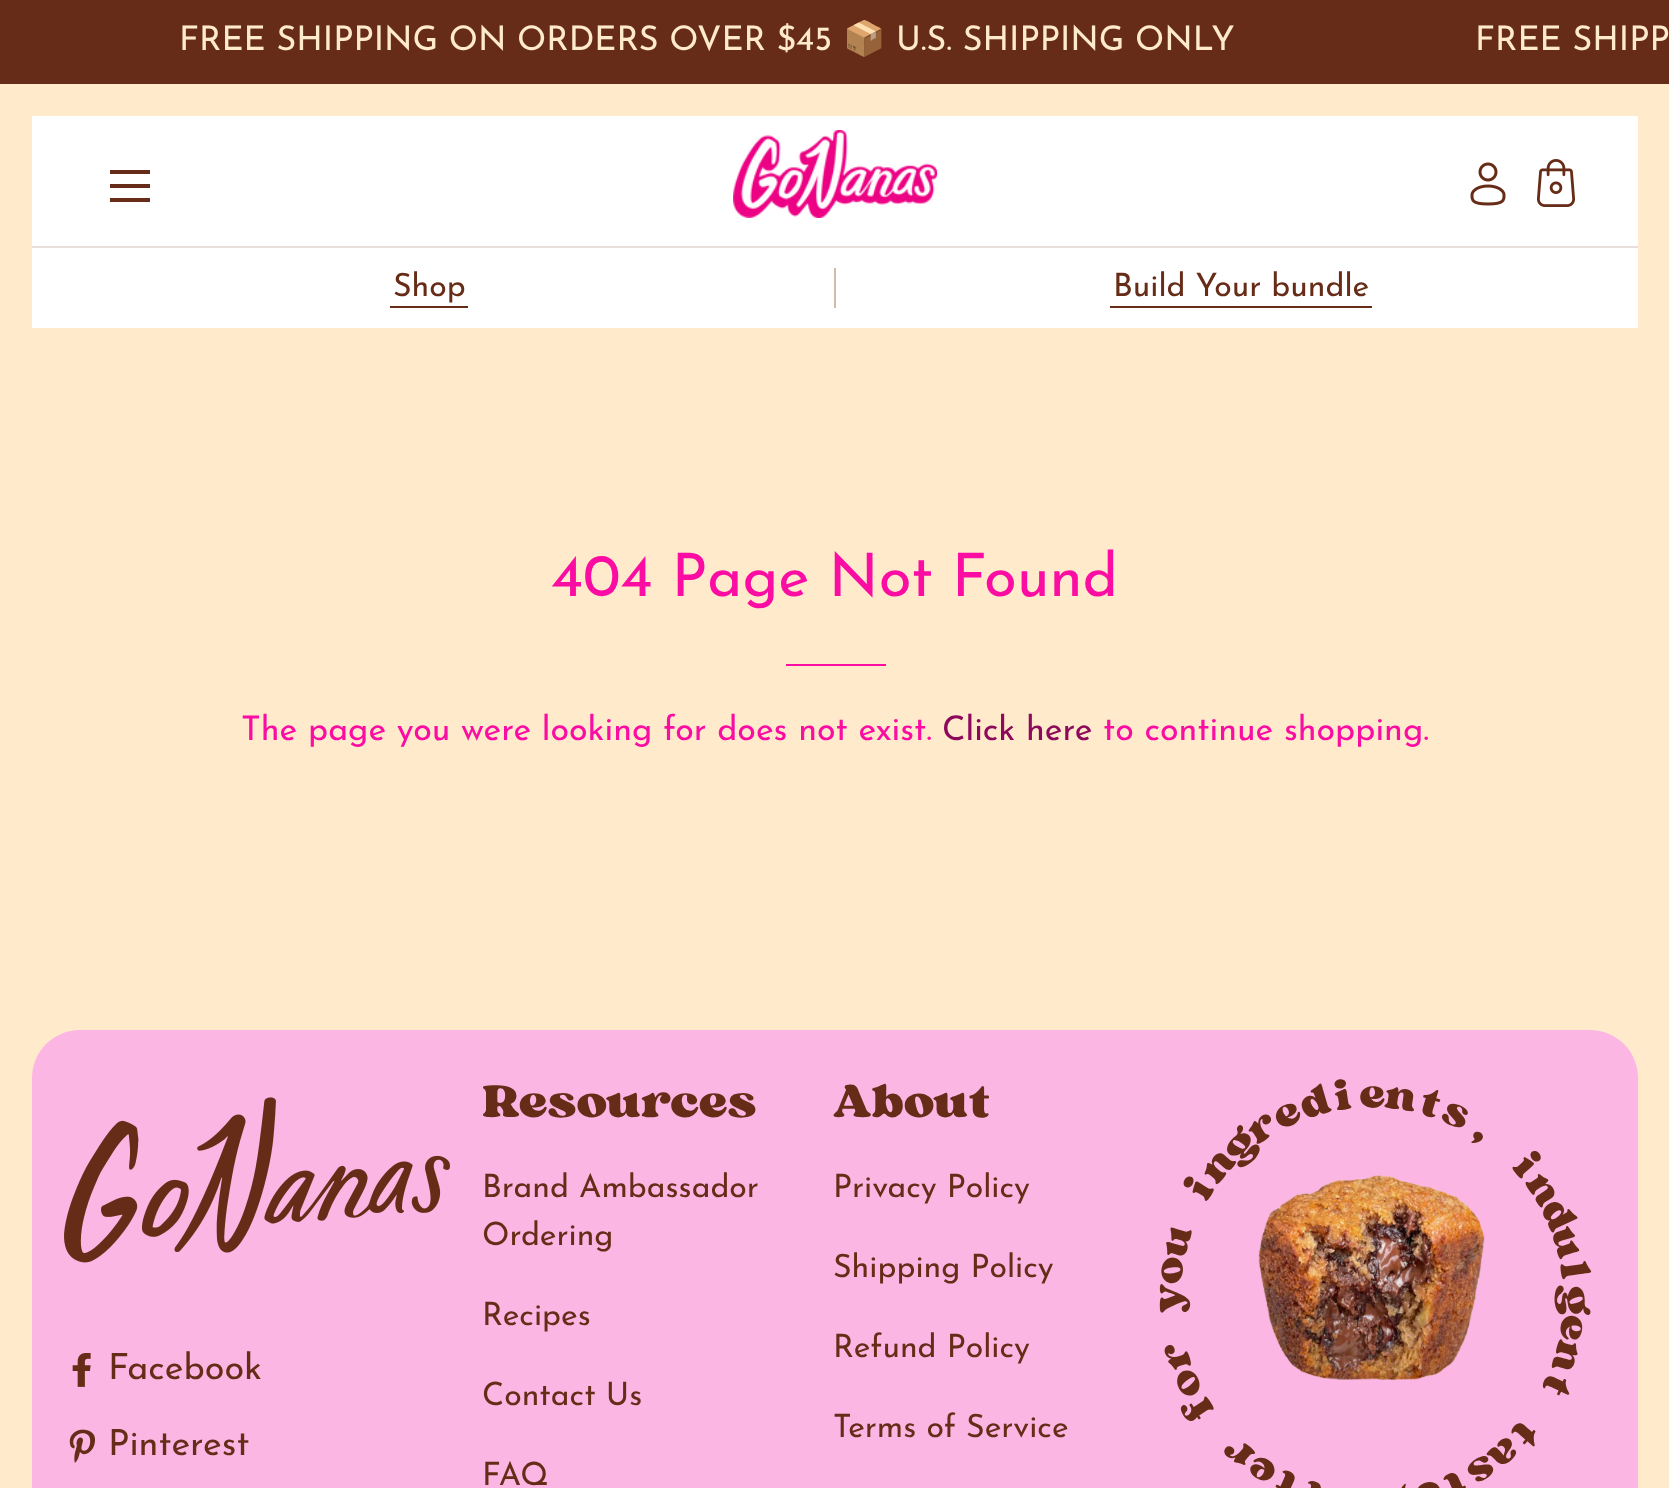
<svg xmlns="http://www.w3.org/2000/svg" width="1669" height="1488">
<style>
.a{font:34px Josefin Sans;fill:#ffeacc}
.b{font:34px Noto Color Emoji;fill:#ffeacc}
.c{font:32px Josefin Sans;fill:#672c17}
.d{font:60px Josefin Sans;fill:#fb0ca2}
.e{font:34px Josefin Sans;fill:#fb0ca2}
.f{font:34px Josefin Sans;fill:#8c095b}
.g{font:36px Josefin Sans;fill:#672c17}
.h{font:48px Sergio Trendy;fill:#672c17}
</style>
<rect width="100%" height="100%" fill="#ffeacc"/>
<path fill="#672c17" d="M0 0h1669v84H0z"/>
<path fill="#fff" d="M32 116h1606v130H32z"/>
<path fill="#e8dfdc" d="M32 246h1606v2H32z"/>
<path fill="#672c17" d="M110 170h40v4H110z"/>
<path fill="#672c17" d="M110 184h40v4H110z"/>
<path fill="#672c17" d="M110 198h40v4H110z"/>
<image href="1.png" x="733" y="130" width="205" height="88"/>
<image href="2.png" x="1470" y="162" width="36" height="44"/>
<image href="3.png" x="1537" y="159" width="38" height="48"/>
<path fill="#fff" d="M32 248h1606v80H32z"/>
<path fill="#672c17" d="M390 306h78v2H390z"/>
<path fill="#d2bba7" d="M834 268h2v40H834z"/>
<path fill="#672c17" d="M1110 306h262v2H1110z"/>
<path fill="#fb0ca2" d="M786 664h100v2H786z"/>
<rect fill="#fbb6e3" x="32" y="1030" width="1606" height="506" rx="48"/>
<image href="4.png" x="64" y="1097" width="386" height="166"/>
<image href="5.png" x="72" y="1353" width="19" height="34"/>
<image href="6.png" x="69" y="1429" width="26" height="34"/>
<image href="8.png" x="1258" y="1175" width="227" height="205"/>
<image href="7.png" x="1159" y="1079" width="433" height="409"/>
<text class="a" x="179" y="50">FREE SHIPPING ON ORDERS OVER $45</text>
<text class="b" x="843" y="50">📦</text>
<text class="a" x="896" y="50">U.S. SHIPPING ONLY</text>
<text class="a" x="1475" y="50">FREE SHIPP</text>
<text class="c" x="393" y="296">Shop</text>
<text class="c" x="1113" y="296">Build Your bundle</text>
<text class="d" x="551" y="596">404 Page Not Found</text>
<text class="e" x="241" y="740">The page you were looking for does not exist.</text>
<text class="f" x="942" y="740">Click here</text>
<text class="e" x="1103" y="740">to continue shopping.</text>
<text class="g" x="108" y="1379">Facebook</text>
<text class="g" x="108" y="1455">Pinterest</text>
<text class="h" x="482" y="1117">Resources</text>
<text class="c" x="482" y="1197">Brand Ambassador</text>
<text class="c" x="482" y="1245">Ordering</text>
<text class="c" x="482" y="1325">Recipes</text>
<text class="c" x="482" y="1405">Contact Us</text>
<text class="c" x="482" y="1485">FAQ</text>
<text class="h" x="833" y="1117">About</text>
<text class="c" x="833" y="1197">Privacy Policy</text>
<text class="c" x="833" y="1277">Shipping Policy</text>
<text class="c" x="833" y="1357">Refund Policy</text>
<text class="c" x="833" y="1437">Terms of Service</text>
</svg>
